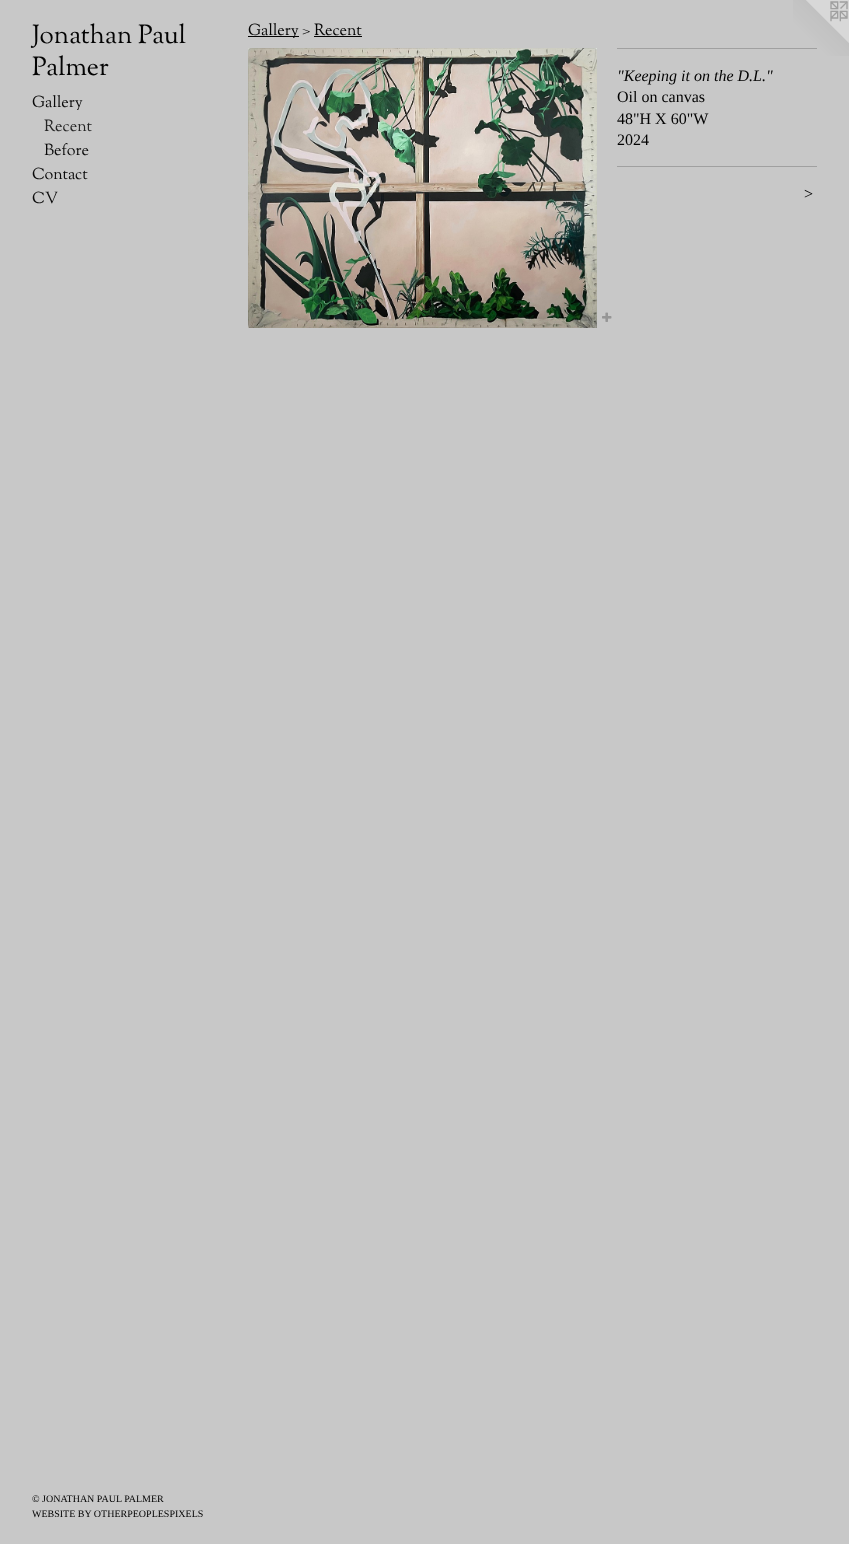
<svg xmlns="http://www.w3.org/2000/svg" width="849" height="1544">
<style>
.a{font:26px Sorts Mill Goudy;fill:#030303}
.b{font:16px Sorts Mill Goudy;fill:#0a0a0a}
.c{font:16px Sorts Mill Goudy;fill:#242424}
.d{font:10px Liberation Serif;fill:#030303}
.e{font:16px Sorts Mill Goudy;fill:#030303}
.f{font:italic 16px Liberation Serif;fill:#030303}
.g{font:16px Liberation Serif;fill:#030303}
.h{font:italic 16px Liberation Serif;letter-spacing:1px;fill:#030303}
</style>
<rect width="100%" height="100%" fill="#c8c8c8"/>
<path fill="#050505" d="M248 36h51v1H248z"/>
<image href="1.png" x="248" y="48" width="349" height="280"/>
<image href="2.png" x="602" y="312" width="10" height="10"/>
<image href="3.png" x="793" y="0" width="56" height="56"/>
<path fill="#a0a0a0" d="M617 48h200v1H617z"/>
<path fill="#a0a0a0" d="M617 166h200v1H617z"/>
<text class="a" x="32" y="43">Jonathan Paul</text>
<text class="a" x="32" y="75">Palmer</text>
<text class="b" x="32" y="107">Gallery</text>
<text class="c" x="44" y="131">Recent</text>
<text class="b" x="44" y="155">Before</text>
<text class="b" x="32" y="179">Contact</text>
<text class="b" x="32" y="203">CV</text>
<text class="d" x="32" y="1502">© JONATHAN PAUL PALMER</text>
<text class="d" x="32" y="1517">WEBSITE BY OTHERPEOPLESPIXELS</text>
<text class="e" x="248" y="35">Gallery &gt; Recent</text>
<path fill="#050505" d="M314 36h48v1H314z"/>
<text class="f" x="617" y="81">"Keeping it on the D.L."</text>
<text class="g" x="617" y="102">Oil on canvas</text>
<text class="g" x="617" y="124">48"H X 60"W</text>
<text class="g" x="617" y="145">2024</text>
<text class="h" x="803" y="199">&gt;</text>
</svg>
